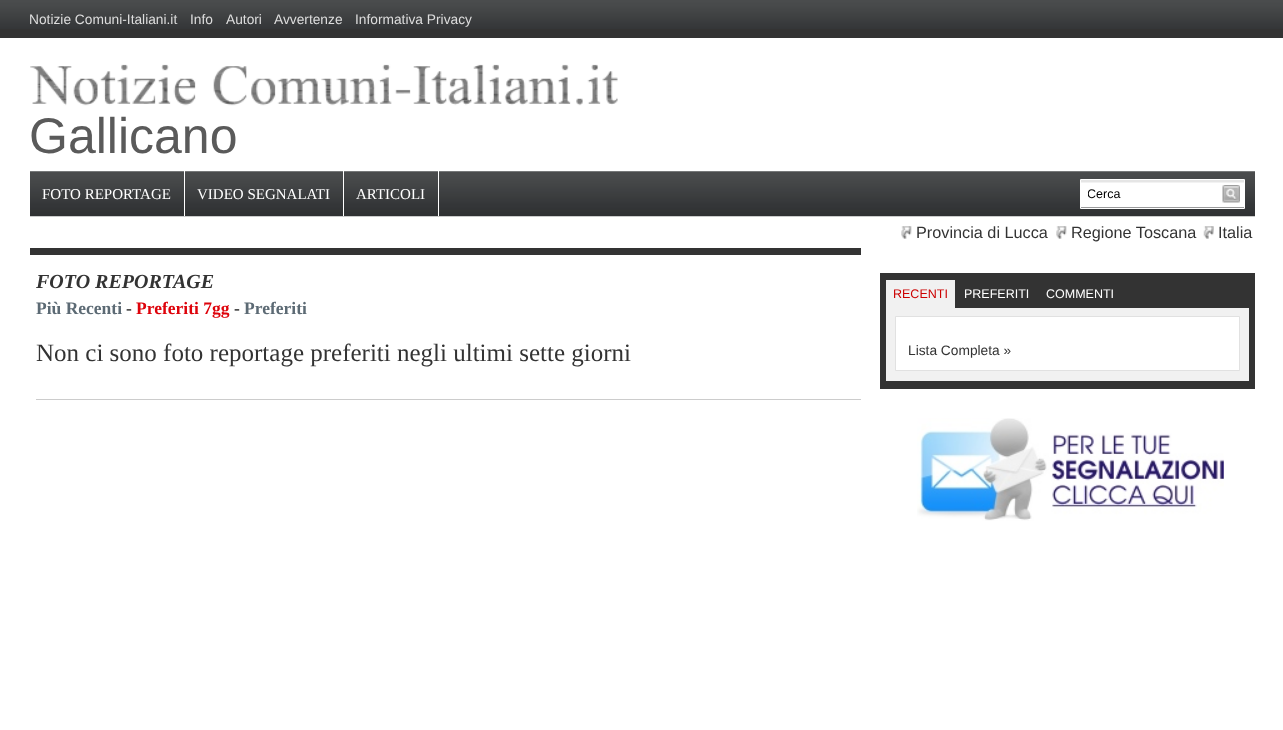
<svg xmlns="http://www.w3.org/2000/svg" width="1283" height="730">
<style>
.a{font:13.75px Liberation Sans;fill:#ddd}
.b{font:50px Liberation Sans;fill:#5a5a5a}
.c{font:15px Liberation Serif;fill:#fff}
.d{font:12.5px Liberation Sans;fill:#000}
.e{font:16.25px Liberation Sans;fill:#333}
.f{font:italic bold 20px Liberation Serif;fill:#333}
.g{font:bold 17.5px Liberation Serif;fill:#5c6a74}
.h{font:bold 17.5px Liberation Serif;fill:#333}
.i{font:bold 17.5px Liberation Serif;fill:#de030b}
.j{font:25px Liberation Serif;fill:#333}
.k{font:12.5px Liberation Sans;fill:#c00}
.l{font:12.5px Liberation Sans;fill:#fff}
.m{font:13.75px Liberation Sans;fill:#333}
</style>
<defs>
<clipPath id="clip1"><path d="M1088 188h156v13H1088z"/></clipPath>
</defs>
<rect width="100%" height="100%" fill="#fff"/>
<path fill="#333" d="M0 29h1283v9H0z"/>
<image href="1.png" x="0" y="0" width="1283" height="29"/>
<image href="2.png" x="30" y="64" width="588" height="42"/>
<image href="3.png" x="30" y="171" width="1225" height="46"/>
<path fill="#fff" d="M184 171h1v45H184z"/>
<path fill="#fff" d="M343 171h1v45H343z"/>
<path fill="#fff" d="M438 171h1v45H438z"/>
<image href="4.png" x="1081" y="180" width="163" height="28"/>
<path fill="none" stroke="#fff" d="M1080.5 179.5h164v29H1080.5z"/>
<image href="5.png" x="1222" y="185" width="18" height="18"/>
<image href="6.png" x="901" y="226" width="11" height="13"/>
<image href="7.png" x="1056" y="226" width="11" height="13"/>
<image href="8.png" x="1203" y="226" width="11" height="13"/>
<path fill="#333" d="M30 248h831v7H30z"/>
<path fill="#ccc" d="M36 399h825v1H36z"/>
<path fill="#333" d="M880 273h375v116H880z"/>
<path fill="#f1f1f1" d="M886 280h69v28H886z"/>
<path fill="#f1f1f1" d="M886 308h363v73H886z"/>
<path fill="#fff" stroke="#e1e1e1" d="M895.5 316.5h344v54H895.5z"/>
<image href="9.png" x="917" y="418" width="307" height="103"/>
<text class="a" x="29" y="24">Notizie Comuni-Italiani.it</text>
<text class="a" x="190" y="24">Info</text>
<text class="a" x="226" y="24">Autori</text>
<text class="a" x="274" y="24">Avvertenze</text>
<text class="a" x="355" y="24">Informativa Privacy</text>
<text class="b" x="29" y="153">Gallicano</text>
<text class="c" x="42" y="199">FOTO REPORTAGE</text>
<text class="c" x="197" y="199">VIDEO SEGNALATI</text>
<text class="c" x="356" y="199">ARTICOLI</text>
<g clip-path="url(#clip1)">
<text class="d" x="1087" y="198">Cerca</text>
</g>
<text class="e" x="916" y="238">Provincia di Lucca</text>
<text class="e" x="1071" y="238">Regione Toscana</text>
<text class="e" x="1218" y="238">Italia</text>
<text class="f" x="36" y="288">FOTO REPORTAGE</text>
<text class="g" x="36" y="314">Più Recenti</text>
<text class="h" x="126" y="314">-</text>
<text class="i" x="136" y="314">Preferiti 7gg</text>
<text class="h" x="234" y="314">-</text>
<text class="g" x="244" y="314">Preferiti</text>
<text class="j" x="36" y="361">Non ci sono foto reportage preferiti negli ultimi sette giorni</text>
<text class="k" x="893" y="298">RECENTI</text>
<text class="l" x="964" y="298">PREFERITI</text>
<text class="l" x="1046" y="298">COMMENTI</text>
<text class="m" x="908" y="355">Lista Completa »</text>
</svg>
